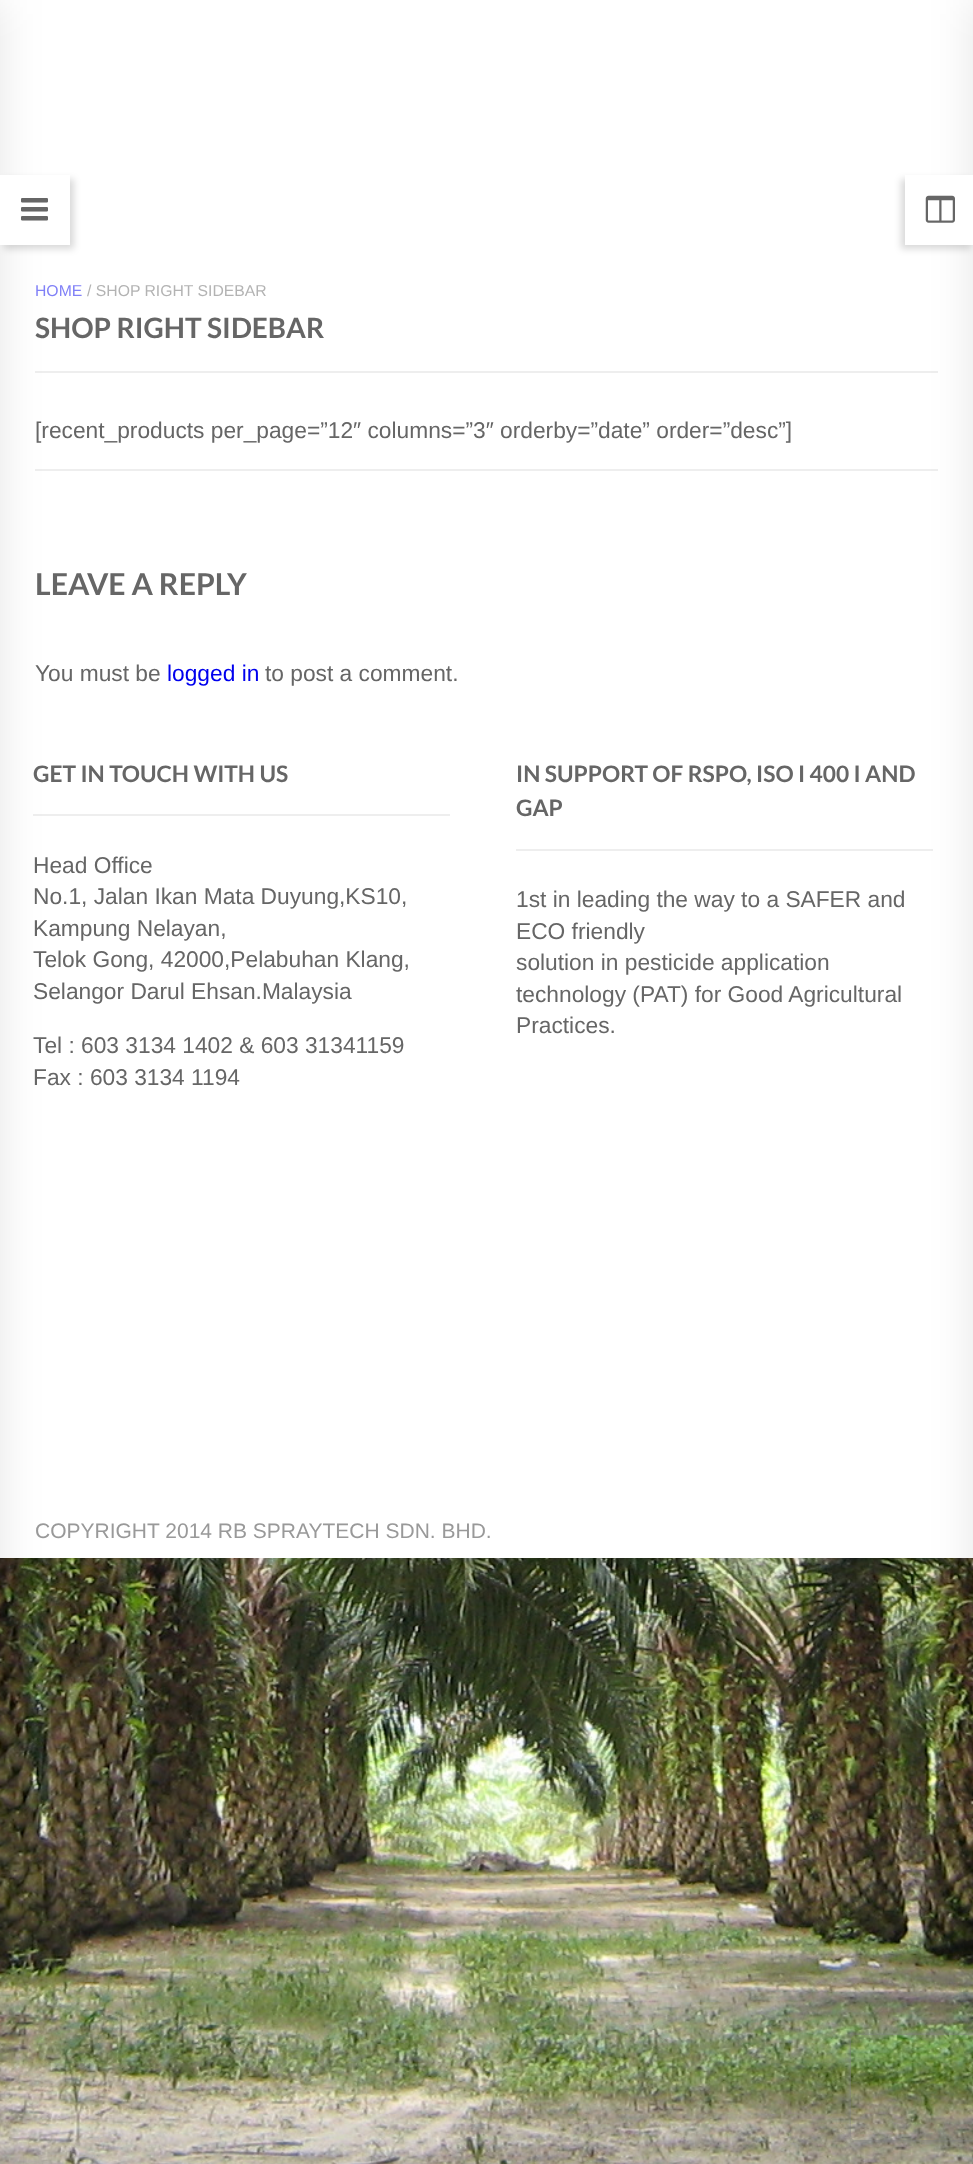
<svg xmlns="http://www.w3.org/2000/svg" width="973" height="2164">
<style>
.a{font:15.75px Liberation Sans;fill:#8080f7}
.b{font:15.75px Liberation Sans;fill:#b3b3b3}
.c{font:bold 28px Lato;fill:#666}
.d{font:22.75px Liberation Sans;fill:#666}
.e{font:bold 30.25px Lato;fill:#666}
.f{font:22.75px Liberation Sans;fill:#00e}
.g{font:bold 22.75px Lato;fill:#666}
.h{font:21px Liberation Sans;fill:#999}
</style>
<defs>
<clipPath id="clip1"><path d="M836 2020h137v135h-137zm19 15h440c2 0 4 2 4 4v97c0 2-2 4-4 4h-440c-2 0-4-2-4-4v-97c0-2 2-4 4-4z" clip-rule="evenodd"/></clipPath>
</defs>
<rect width="100%" height="100%" fill="#fff"/>
<image href="3.png" x="0" y="1558" width="973" height="606"/>
<path fill="#0000001a" filter="blur(5px)" d="M0 0h973v1558H0z"/>
<path fill="#fff" d="M0 0h973v1558H0z"/>
<path fill="#eee" d="M35 371h903v2H35z"/>
<path fill="#eee" d="M35 469h903v2H35z"/>
<path fill="#eee" d="M33 814h417v2H33z"/>
<path fill="#0000001a" filter="blur(22px)" d="M-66 0h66v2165H-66z"/>
<path fill="#00000026" filter="blur(3.5px)" d="M4 179h70v70H4z"/>
<path fill="#fff" d="M0 175h70v70H0z"/>
<image href="1.png" x="21" y="198" width="27" height="23"/>
<path fill="#eee" d="M516 849h417v2H516z"/>
<path fill="#0000001a" filter="blur(22px)" d="M973 0h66v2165H973z"/>
<path fill="#00000026" filter="blur(3.5px)" d="M901 179h70v70H901z"/>
<path fill="#fff" d="M905 175h68v70H905z"/>
<image href="2.png" x="925" y="195" width="30" height="28"/>
<g clip-path="url(#clip1)">
<rect fill="#808080" filter="blur(4.5px)" x="851" y="2035" width="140" height="105" rx="4"/>
</g>
<text class="a" x="35" y="296">HOME</text>
<text class="b" x="87" y="296">/ SHOP RIGHT SIDEBAR</text>
<text class="c" x="35" y="338">SHOP RIGHT SIDEBAR</text>
<text class="d" x="35" y="438">[recent_products per_page=”12″ columns=”3″ orderby=”date” order=”desc”]</text>
<text class="e" x="35" y="595">LEAVE A REPLY</text>
<text class="d" x="35" y="681">You must be</text>
<text class="f" x="167" y="681">logged in</text>
<text class="d" x="265" y="681">to post a comment.</text>
<text class="g" x="33" y="782">GET IN TOUCH WITH US</text>
<text class="d" x="33" y="873">Head Office</text>
<text class="d" x="33" y="904">No.1, Jalan Ikan Mata Duyung,KS10,</text>
<text class="d" x="33" y="936">Kampung Nelayan,</text>
<text class="d" x="33" y="967">Telok Gong, 42000,Pelabuhan Klang,</text>
<text class="d" x="33" y="999">Selangor Darul Ehsan.Malaysia</text>
<text class="d" x="33" y="1053">Tel : 603 3134 1402 &amp; 603 31341159</text>
<text class="d" x="33" y="1085">Fax : 603 3134 1194</text>
<text class="g" x="516" y="782">IN SUPPORT OF RSPO, ISO I 400 I AND</text>
<text class="g" x="516" y="816">GAP</text>
<text class="d" x="516" y="907">1st in leading the way to a SAFER and</text>
<text class="d" x="516" y="939">ECO friendly</text>
<text class="d" x="516" y="970">solution in pesticide application</text>
<text class="d" x="516" y="1002">technology (PAT) for Good Agricultural</text>
<text class="d" x="516" y="1033">Practices.</text>
<text class="h" x="35" y="1538">COPYRIGHT 2014 RB SPRAYTECH SDN. BHD.</text>
</svg>
